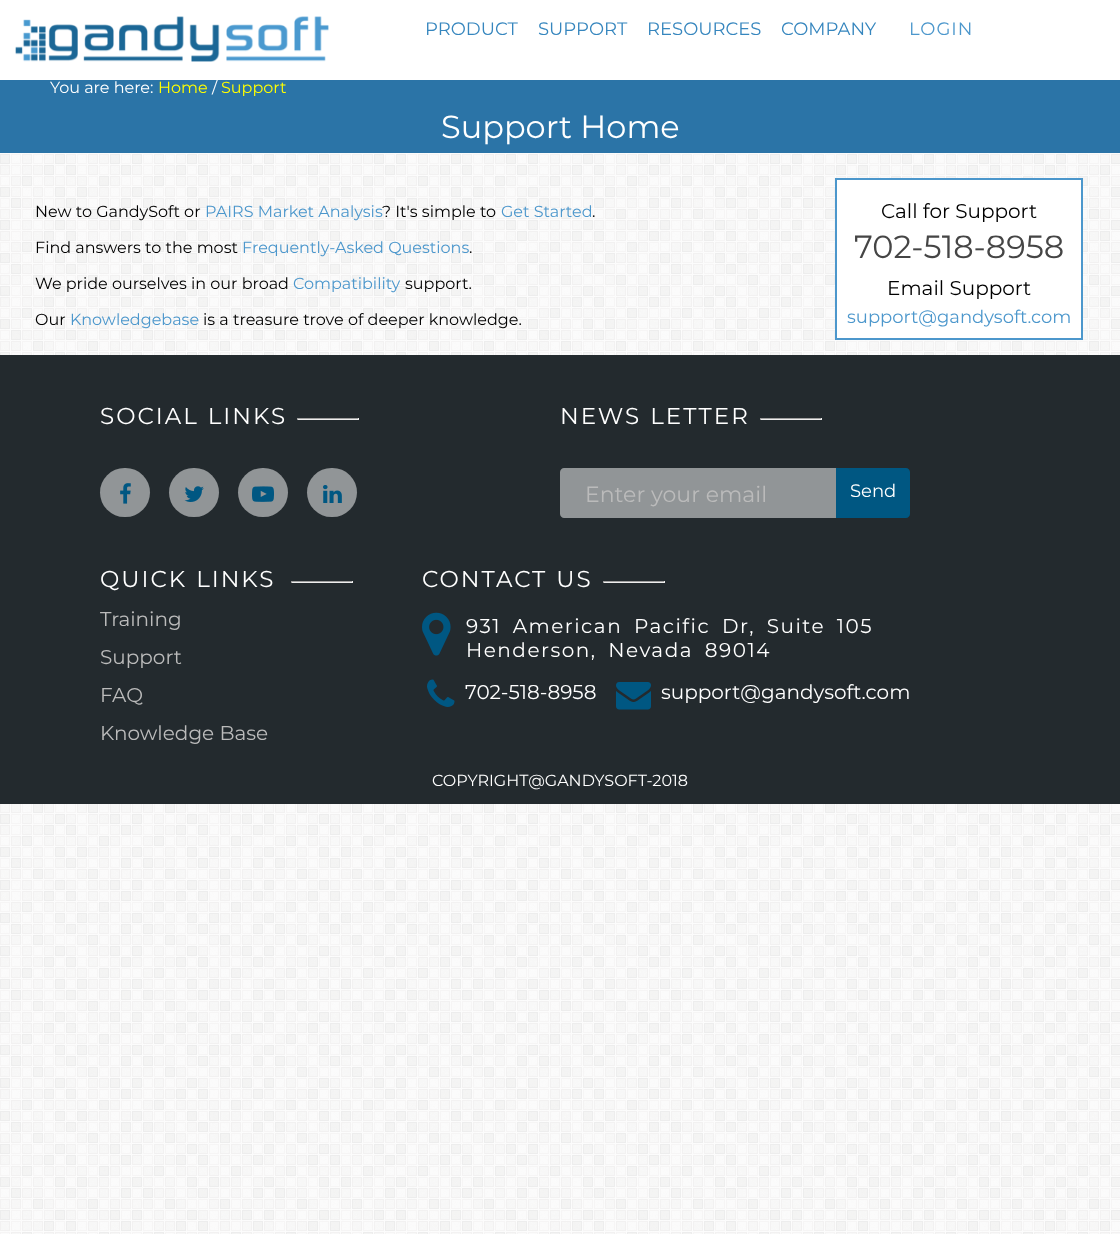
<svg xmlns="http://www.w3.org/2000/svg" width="1120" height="1234">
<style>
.a{font:100 18px Montserrat;fill:#3686be}
.b{font:100 18px Montserrat;letter-spacing:1px;fill:#4c97cc}
.c{font:100 16px Montserrat;fill:#fff}
.d{font:100 16px Montserrat;fill:#ff0}
.e{font:100 32px Montserrat;fill:#fff}
.f{font:100 16px Montserrat;fill:#000}
.g{font:100 16px Montserrat;fill:#4c97cc}
.h{font:100 20px Montserrat;fill:#000}
.i{font:100 32px Montserrat;fill:#454545}
.j{font:100 18px Montserrat;fill:#4c97cc}
.k{font:100 23px Montserrat;letter-spacing:2px;fill:#fff}
.l{font:100 22px Montserrat;fill:#bbb}
.m{font:100 18px Montserrat;fill:#fff}
.n{font:100 20px Montserrat;fill:#bbb}
.o{font:100 20px Montserrat;letter-spacing:1.5px;fill:#fff}
.p{font:100 20px Montserrat;fill:#fff}
</style>
<rect width="100%" height="100%" fill="#fff"/>
<image href="1.png" x="0" y="153" width="1120" height="1081"/>
<image href="2.png" x="15" y="16" width="314" height="46"/>
<path fill="#2b74a7" d="M0 80h1120v73H0z"/>
<path fill="#fff" stroke="#4c97cc" stroke-width="2" d="M836 179h246v160H836z"/>
<path fill="#232a2e" d="M0 355h1120v449H0z"/>
<path fill="#9f9f9f" d="M297 418h62v1H297z"/>
<path fill="#eee" d="M358 418h1v2H358z"/>
<path fill="#eee" d="M297 419h62v1H297z"/>
<path fill="#9f9f9f" d="M297 418h1v2H297z"/>
<path fill="#9f9f9f" d="M760 418h62v1H760z"/>
<path fill="#eee" d="M821 418h1v2H821z"/>
<path fill="#eee" d="M760 419h62v1H760z"/>
<path fill="#9f9f9f" d="M760 418h1v2H760z"/>
<rect fill="#919597" x="100" y="468" width="50" height="49" rx="24.5"/>
<image href="3.png" x="120" y="483" width="11" height="21"/>
<rect fill="#919597" x="169" y="468" width="50" height="49" rx="24.5"/>
<image href="4.png" x="184" y="486" width="20" height="16"/>
<rect fill="#919597" x="238" y="468" width="50" height="49" rx="24.5"/>
<image href="5.png" x="252" y="486" width="22" height="16"/>
<rect fill="#919597" x="307" y="468" width="50" height="49" rx="24.5"/>
<image href="6.png" x="323" y="485" width="19" height="18"/>
<path fill="#919597" d="M564 468h272v50h-272c-2 0-4-2-4-4v-42c0-2 2-4 4-4z"/>
<path fill="#005782" d="M836 468h70c2 0 4 2 4 4v42c0 2-2 4-4 4h-70z"/>
<path fill="#9f9f9f" d="M291 581h62v1H291z"/>
<path fill="#eee" d="M352 581h1v2H352z"/>
<path fill="#eee" d="M291 582h62v1H291z"/>
<path fill="#9f9f9f" d="M291 581h1v2H291z"/>
<path fill="#9f9f9f" d="M603 581h62v1H603z"/>
<path fill="#eee" d="M664 581h1v2H664z"/>
<path fill="#eee" d="M603 582h62v1H603z"/>
<path fill="#9f9f9f" d="M603 581h1v2H603z"/>
<image href="7.png" x="422" y="612" width="29" height="44"/>
<image href="8.png" x="427" y="679" width="28" height="28"/>
<image href="9.png" x="616" y="682" width="35" height="28"/>
<text class="a" x="425" y="35">PRODUCT</text>
<text class="a" x="538" y="35">SUPPORT</text>
<text class="a" x="647" y="35">RESOURCES</text>
<text class="a" x="781" y="35">COMPANY</text>
<text class="b" x="909" y="35">LOGIN</text>
<text class="c" x="50" y="93">You are here:</text>
<text class="d" x="158" y="93">Home</text>
<text class="c" x="212" y="93">/</text>
<text class="d" x="221" y="93">Support</text>
<text class="e" x="441" y="138">Support Home</text>
<text class="f" x="35" y="217">New to GandySoft or</text>
<text class="g" x="205" y="217">PAIRS Market Analysis</text>
<text class="f" x="382" y="217">? It's simple to</text>
<text class="g" x="501" y="217">Get Started</text>
<text class="f" x="592" y="217">.</text>
<text class="h" x="881" y="218">Call for Support</text>
<text class="i" x="854" y="258">702-518-8958</text>
<text class="h" x="887" y="295">Email Support</text>
<text class="j" x="847" y="323">support@gandysoft.com</text>
<text class="f" x="35" y="253">Find answers to the most</text>
<text class="g" x="242" y="253">Frequently-Asked Questions</text>
<text class="f" x="469" y="253">.</text>
<text class="f" x="35" y="289">We pride ourselves in our broad</text>
<text class="g" x="293" y="289">Compatibility</text>
<text class="f" x="405" y="289">support.</text>
<text class="f" x="35" y="325">Our</text>
<text class="g" x="70" y="325">Knowledgebase</text>
<text class="f" x="203" y="325">is a treasure trove of deeper knowledge.</text>
<text class="k" x="100" y="424" word-spacing="1">SOCIAL LINKS</text>
<text class="k" x="560" y="424" word-spacing="1">NEWS LETTER</text>
<text class="l" x="585" y="502">Enter your email</text>
<text class="m" x="850" y="497">Send</text>
<text class="k" x="100" y="587" word-spacing="1">QUICK LINKS</text>
<text class="n" x="100" y="626">Training</text>
<text class="n" x="100" y="664">Support</text>
<text class="n" x="100" y="702">FAQ</text>
<text class="n" x="100" y="740">Knowledge Base</text>
<text class="k" x="422" y="587" word-spacing="1">CONTACT US</text>
<text class="o" x="466" y="633" word-spacing="5">931 American Pacific Dr, Suite 105</text>
<text class="o" x="466" y="657" word-spacing="5">Henderson, Nevada 89014</text>
<text class="p" x="465" y="699">702-518-8958</text>
<text class="p" x="661" y="699">support@gandysoft.com</text>
<text class="c" x="432" y="786">COPYRIGHT@GANDYSOFT-2018</text>
</svg>
